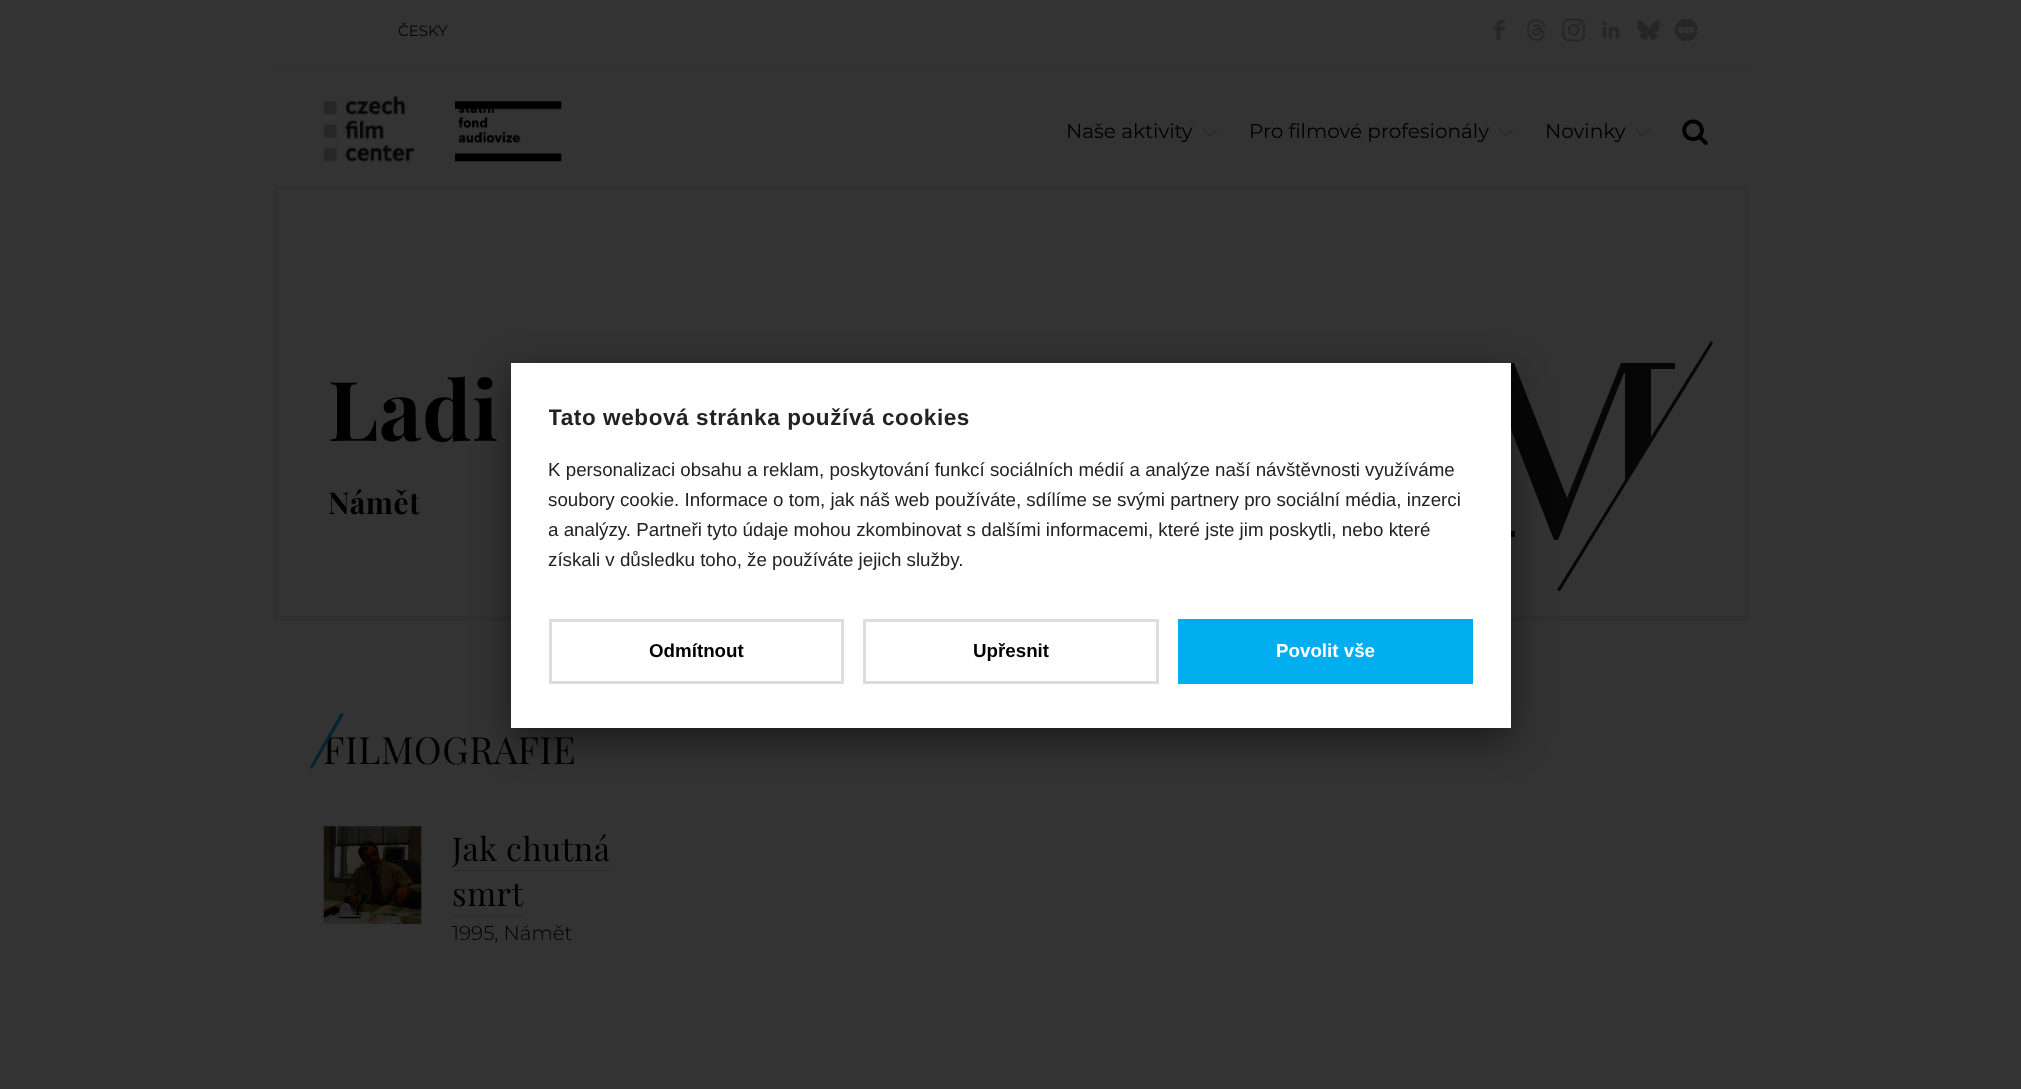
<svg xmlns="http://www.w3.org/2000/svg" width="2021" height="1089">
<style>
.a{font:15px Montserrat;fill:#070606}
.b{font:20px Montserrat;fill:#000}
.c{font:bold 82.5px Playfair Display;letter-spacing:0.6px;fill:#000}
.d{font:bold 30px Playfair Display;letter-spacing:0.6px;fill:#000}
.e{font:37.5px Playfair Display;letter-spacing:0.6px;fill:#000}
.f{font:32.5px Playfair Display;letter-spacing:0.6px;fill:#000}
.g{font:300 20px Montserrat;fill:#000}
.h{font:bold 22.5px Liberation Sans;letter-spacing:0.6px;fill:#222}
.i{font:18.75px Liberation Sans;fill:#222}
.j{font:bold 18.75px Liberation Sans;fill:#000}
.k{font:bold 18.75px Liberation Sans;fill:#fff}
</style>
<defs>
<clipPath id="clip1"><path d="M549 400h925v194H549z"/></clipPath>
</defs>
<rect width="100%" height="100%" fill="#333"/>
<path fill="#303030" d="M274 65h1475v1H274z"/>
<image href="1.png" x="1493" y="19" width="12" height="22"/>
<image href="2.png" x="1527" y="19" width="19" height="22"/>
<image href="3.png" x="1562" y="18" width="23" height="24"/>
<image href="4.png" x="1602" y="21" width="18" height="18"/>
<image href="5.png" x="1637" y="20" width="23" height="20"/>
<image href="6.png" x="1675" y="19" width="23" height="22"/>
<image href="7.png" x="323" y="96" width="92" height="66"/>
<image href="8.png" x="455" y="101" width="107" height="61"/>
<image href="9.png" x="1202" y="128" width="16" height="9"/>
<image href="10.png" x="1498" y="128" width="16" height="9"/>
<image href="11.png" x="1635" y="128" width="15" height="9"/>
<image href="12.png" x="1682" y="119" width="26" height="26"/>
<path fill="none" stroke="#303030" stroke-width="5" d="M276.5 188.5h1470v430H276.5z"/>
<path fill="#070606" d="M1711 341l-60 96v-68h24v-6h-54l-54 135l-53-135h-56v6h23v162h-23v6h57v-6h-27v-158h1l65 167h4l66-167h1v107l-68 110l3 1l153-248z"/>
<image href="13.png" x="323" y="826" width="99" height="98"/>
<path fill="#2c2c2c" d="M453 870h158v1H453z"/>
<path fill="#2c2c2c" d="M453 915h71v1H453z"/>
<path fill="#00000080" filter="blur(19px)" d="M511 375h1000v365H511z"/>
<path fill="#fff" d="M511 363h1000v365H511z"/>
<path fill="none" stroke="#ddd" stroke-width="3" d="M550.5 620.5h292v62H550.5z"/>
<path fill="none" stroke="#ddd" stroke-width="3" d="M864.5 620.5h293v62H864.5z"/>
<path fill="#00aeef" d="M1178 619h295v65H1178z"/>
<text class="a" x="398" y="36">ČESKY</text>
<text class="b" x="1066" y="138">Naše aktivity</text>
<text class="b" x="1249" y="138">Pro filmové profesionály</text>
<text class="b" x="1545" y="138">Novinky</text>
<text class="c" x="328" y="441">Ladi</text>
<text class="d" x="328" y="514">Námět</text>
<text class="e" x="323" y="764">FILMOGRAFIE</text>
<path fill="#333" d="M325 704l19 10l-32 55l-18-11z"/>
<path fill="#002330" d="M341 713l3 1l-32 55l-2-2z"/>
<text class="f" x="452" y="861">Jak chutná</text>
<text class="f" x="452" y="906">smrt</text>
<text class="g" x="452" y="940">1995, Námět</text>
<g clip-path="url(#clip1)">
<text class="h" x="548" y="425">Tato webová stránka používá cookies</text>
</g>
<text class="i" x="548" y="476">K personalizaci obsahu a reklam, poskytování funkcí sociálních médií a analýze naší návštěvnosti využíváme</text>
<text class="i" x="548" y="506">soubory cookie. Informace o tom, jak náš web používáte, sdílíme se svými partnery pro sociální média, inzerci</text>
<text class="i" x="548" y="536">a analýzy. Partneři tyto údaje mohou zkombinovat s dalšími informacemi, které jste jim poskytli, nebo které</text>
<text class="i" x="548" y="566">získali v důsledku toho, že používáte jejich služby.</text>
<text class="j" x="649" y="657">Odmítnout</text>
<text class="j" x="973" y="657">Upřesnit</text>
<text class="k" x="1276" y="657">Povolit vše</text>
</svg>
